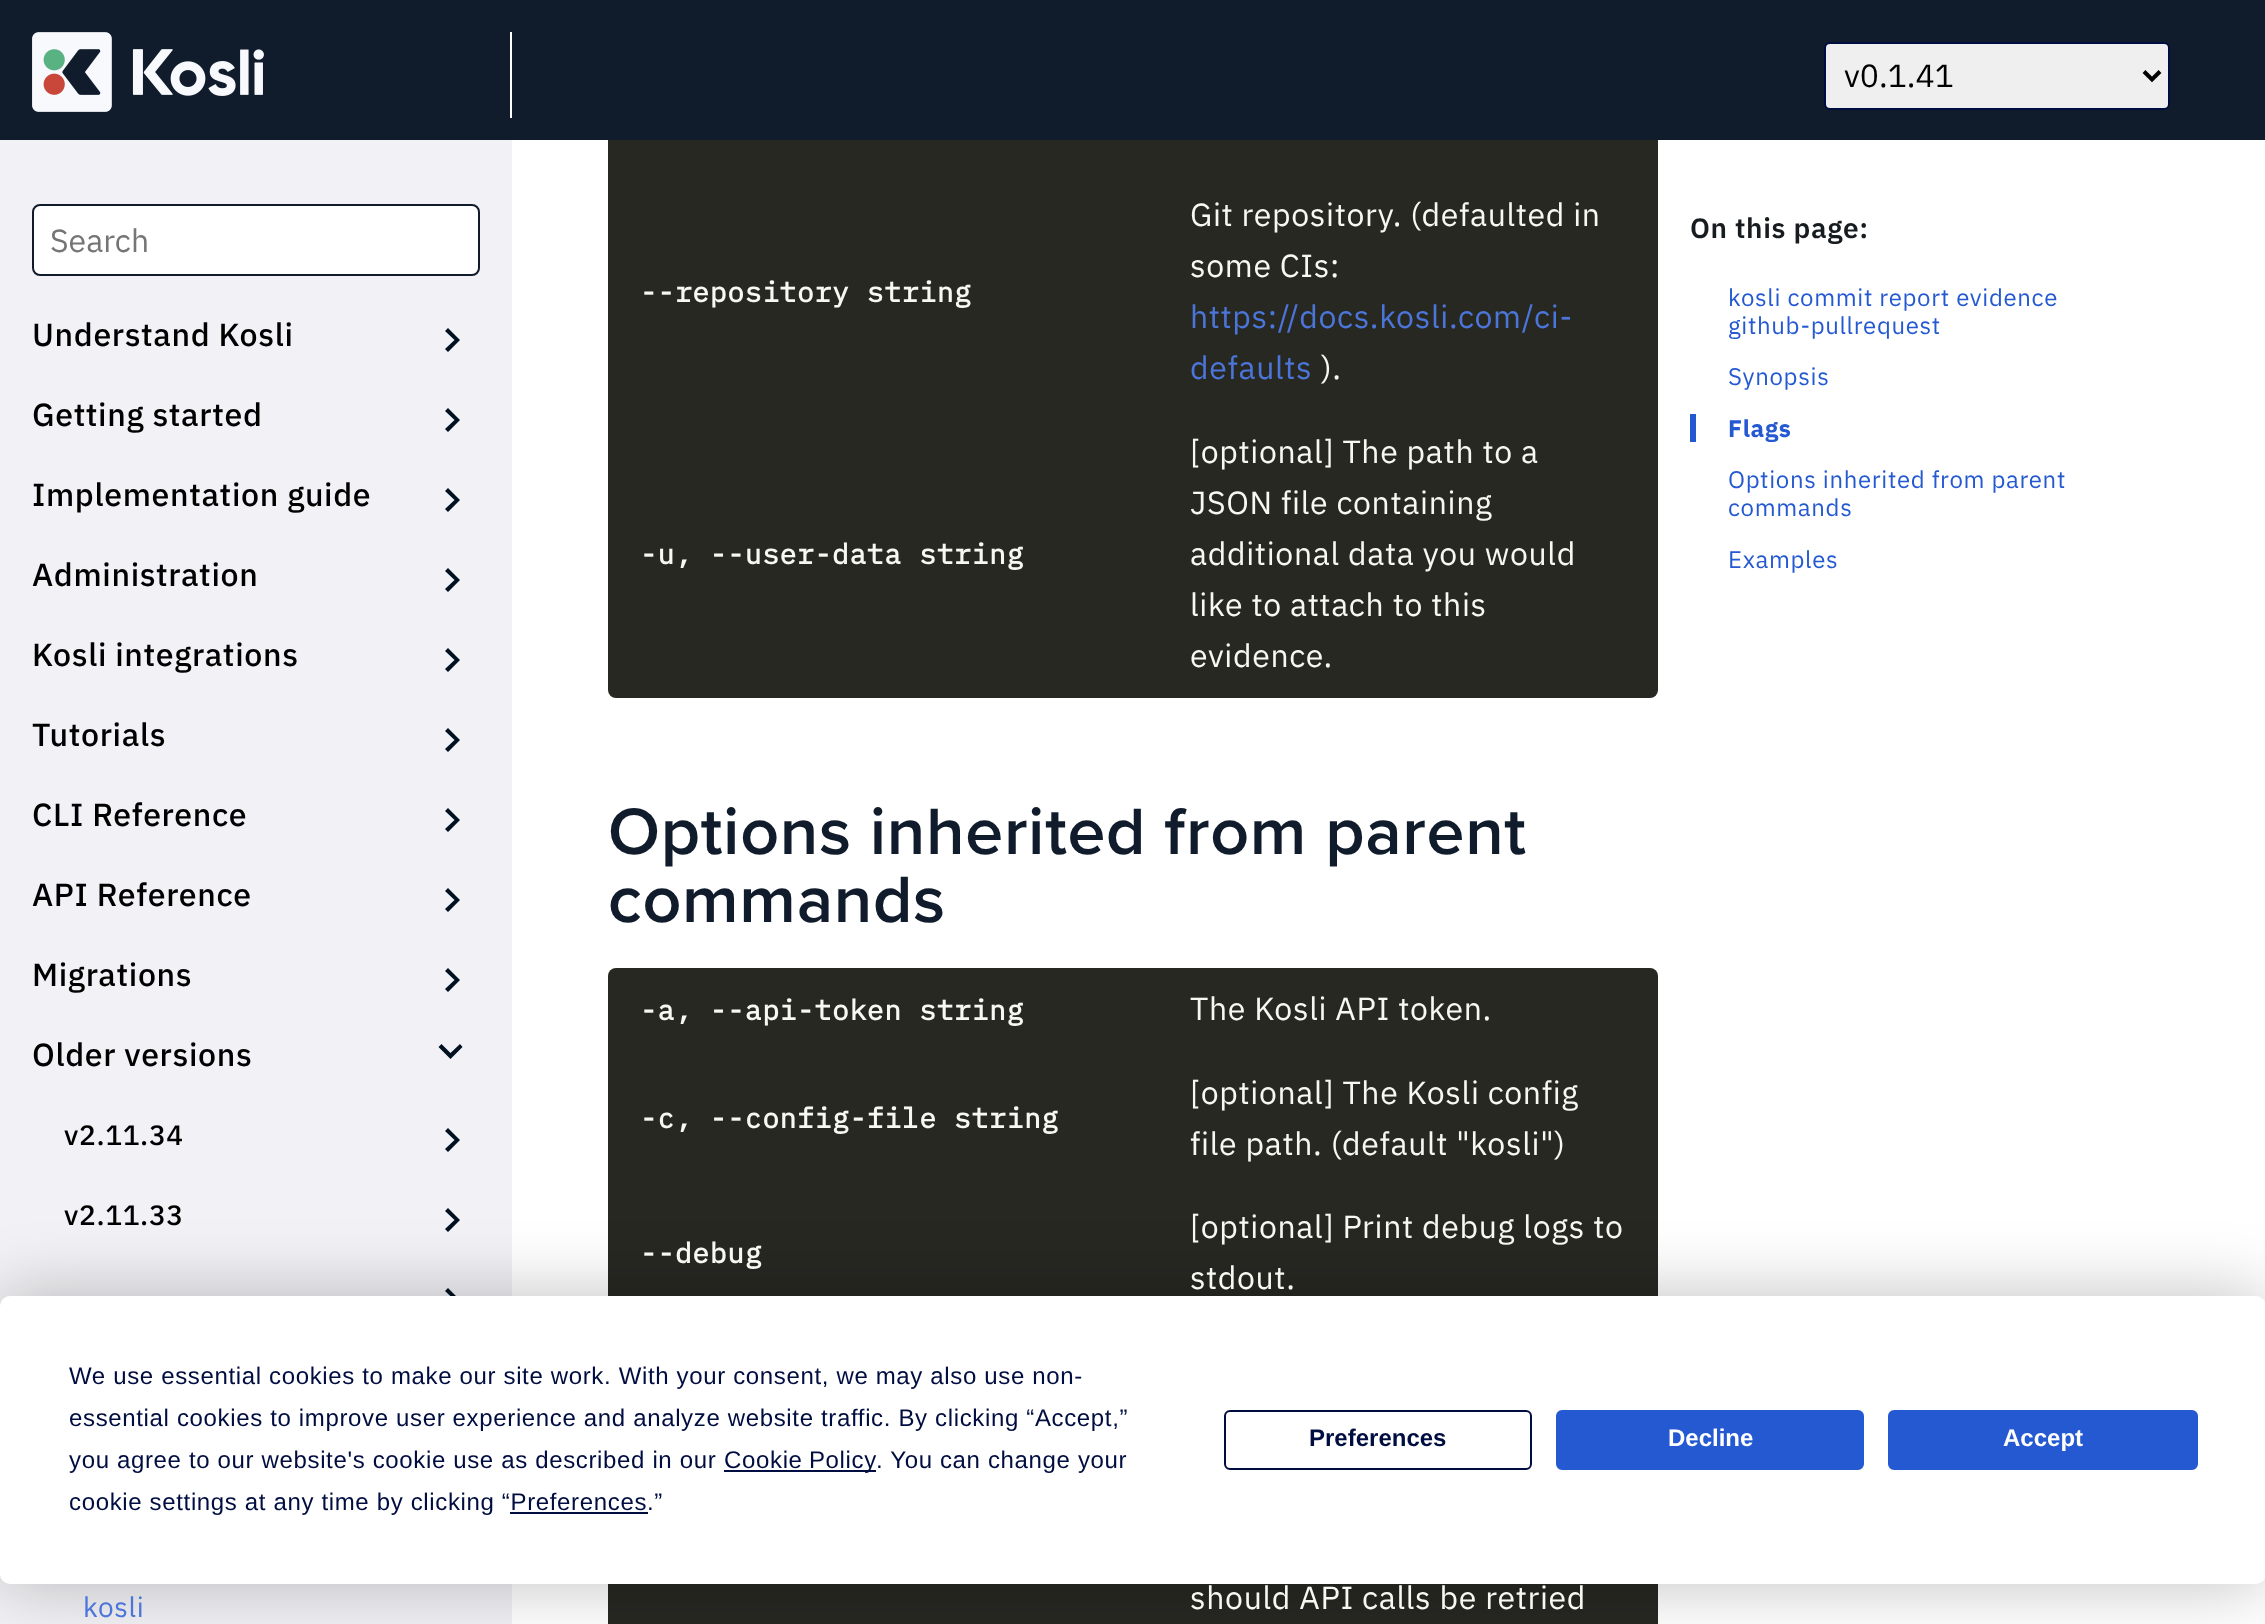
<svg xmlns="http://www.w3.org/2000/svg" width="2265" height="1624">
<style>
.a{font:32px IBM Plex Sans;fill:#000}
.b{font:32px IBM Plex Sans;fill:#757575}
.c{font:500 32px IBM Plex Sans;letter-spacing:0.65px;fill:#000}
.d{font:500 28px IBM Plex Sans;letter-spacing:0.65px;fill:#000}
.e{font:28px IBM Plex Sans;letter-spacing:0.65px;fill:#4b75d9}
.f{font:bold 28px IBM Plex Mono;letter-spacing:0.65px;fill:#f8f8f2}
.g{font:32px IBM Plex Sans;letter-spacing:0.65px;fill:#f8f8f2}
.h{font:32px IBM Plex Sans;letter-spacing:0.65px;fill:#4b75d9}
.i{font:600 68px Proxima Nova;letter-spacing:0.65px;fill:#101c2b}
.j{font:600 28px IBM Plex Sans;letter-spacing:0.65px;fill:#171c21}
.k{font:24px IBM Plex Sans;letter-spacing:0.65px;fill:#2459d1}
.l{font:bold 24px IBM Plex Sans;letter-spacing:0.65px;fill:#2459d1}
.m{font:24px Liberation Sans;letter-spacing:0.65px;fill:#000d40}
.n{font:bold 24px Liberation Sans;fill:#000d40}
.o{font:bold 24px Liberation Sans;fill:#fff}
</style>
<rect width="100%" height="100%" fill="#fff"/>
<rect fill="#272822" x="608" y="-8" width="1050" height="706" rx="8"/>
<path fill="#101c2b" d="M0 0h2265v140H0z"/>
<path fill="#fff" d="M510 32h2v86H510z"/>
<image href="1.png" x="32" y="32" width="232" height="80"/>
<rect fill="#efefef" stroke="#000d40" stroke-width="2" x="1825" y="43" width="344" height="66" rx="5"/>
<path fill="none" stroke="#000" stroke-width="4" d="M2144 71.5l8 8l8-8"/>
<path fill="#f2f2f6" d="M0 140h512v1484H0z"/>
<rect fill="#fff" stroke="#101c2b" stroke-width="2" x="33" y="205" width="446" height="70" rx="7"/>
<path fill="#001121" d="M445 349l3 3l12-12l-12-12l-3 3l9.5 9z"/>
<path fill="#001121" d="M445 429l3 3l12-12l-12-12l-3 3l9.5 9z"/>
<path fill="#001121" d="M445 509l3 3l12-12l-12-12l-3 3l9.5 9z"/>
<path fill="#001121" d="M445 589l3 3l12-12l-12-12l-3 3l9.5 9z"/>
<path fill="#001121" d="M445 669l3 3l12-12l-12-12l-3 3l9.5 9z"/>
<path fill="#001121" d="M445 749l3 3l12-12l-12-12l-3 3l9.5 9z"/>
<path fill="#001121" d="M445 829l3 3l12-12l-12-12l-3 3l9.5 9z"/>
<path fill="#001121" d="M445 909l3 3l12-12l-12-12l-3 3l9.5 9z"/>
<path fill="#001121" d="M445 989l3 3l12-12l-12-12l-3 3l9.5 9z"/>
<path fill="#001121" d="M441.5 1044l-3 3l12 12l12-12l-2.5-3l-9.5 9z"/>
<path fill="#001121" d="M445 1149l3 3l12-12l-12-12l-3 3l9.5 9z"/>
<path fill="#001121" d="M445 1229l3 3l12-12l-12-12l-3 3l9.5 9z"/>
<path fill="#001121" d="M445 1309l3 3l12-12l-12-12l-3 3l9.5 9z"/>
<rect fill="#272822" x="608" y="968" width="1050" height="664" rx="8"/>
<path fill="#2459d1" d="M1690 414h6v28H1690z"/>
<rect fill="#00000040" filter="blur(35px)" y="1296" width="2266" height="288" rx="10"/>
<rect fill="#fff" y="1296" width="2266" height="288" rx="10"/>
<path fill="#000d40" d="M724 1470h152v2H724z"/>
<path fill="#000d40" d="M510 1512h138v2H510z"/>
<rect fill="none" stroke="#000d40" stroke-width="2" x="1225" y="1411" width="306" height="58" rx="5"/>
<rect fill="#2459d1" stroke="#2459d1" stroke-width="2" x="1557" y="1411" width="306" height="58" rx="5"/>
<rect fill="#2459d1" stroke="#2459d1" stroke-width="2" x="1889" y="1411" width="308" height="58" rx="5"/>
<text class="a" x="1844" y="87">v0.1.41</text>
<text class="b" x="50" y="252">Search</text>
<text class="c" x="32" y="346">Understand Kosli</text>
<text class="c" x="32" y="426">Getting started</text>
<text class="c" x="32" y="506">Implementation guide</text>
<text class="c" x="32" y="586">Administration</text>
<text class="c" x="32" y="666">Kosli integrations</text>
<text class="c" x="32" y="746">Tutorials</text>
<text class="c" x="32" y="826">CLI Reference</text>
<text class="c" x="32" y="906">API Reference</text>
<text class="c" x="32" y="986">Migrations</text>
<text class="c" x="32" y="1066">Older versions</text>
<text class="d" x="64" y="1145">v2.11.34</text>
<text class="d" x="64" y="1225">v2.11.33</text>
<text class="e" x="83" y="1617">kosli</text>
<text class="f" x="640" y="302">--repository string</text>
<text class="g" x="1190" y="226">Git repository. (defaulted in</text>
<text class="g" x="1190" y="277">some CIs:</text>
<text class="h" x="1190" y="328">https://docs.kosli.com/ci-</text>
<text class="h" x="1190" y="379">defaults</text>
<text class="g" x="1321" y="379">).</text>
<text class="f" x="640" y="564">-u, --user-data string</text>
<text class="g" x="1190" y="463">[optional] The path to a</text>
<text class="g" x="1190" y="514">JSON file containing</text>
<text class="g" x="1190" y="565">additional data you would</text>
<text class="g" x="1190" y="616">like to attach to this</text>
<text class="g" x="1190" y="667">evidence.</text>
<text class="i" x="608" y="854">Options inherited from parent</text>
<text class="i" x="608" y="922">commands</text>
<text class="f" x="640" y="1020">-a, --api-token string</text>
<text class="g" x="1190" y="1020">The Kosli API token.</text>
<text class="f" x="640" y="1128">-c, --config-file string</text>
<text class="g" x="1190" y="1104">[optional] The Kosli config</text>
<text class="g" x="1190" y="1155">file path. (default "kosli")</text>
<text class="f" x="640" y="1263">--debug</text>
<text class="g" x="1190" y="1238">[optional] Print debug logs to</text>
<text class="g" x="1190" y="1289">stdout.</text>
<text class="g" x="1190" y="1609">should API calls be retried</text>
<text class="j" x="1690" y="238">On this page:</text>
<text class="k" x="1728" y="306">kosli commit report evidence</text>
<text class="k" x="1728" y="334">github-pullrequest</text>
<text class="k" x="1728" y="385">Synopsis</text>
<text class="l" x="1728" y="437">Flags</text>
<text class="k" x="1728" y="488">Options inherited from parent</text>
<text class="k" x="1728" y="516">commands</text>
<text class="k" x="1728" y="568">Examples</text>
<text class="m" x="69" y="1384">We use essential cookies to make our site work. With your consent, we may also use non-</text>
<text class="m" x="69" y="1426">essential cookies to improve user experience and analyze website traffic. By clicking “Accept,”</text>
<text class="m" x="69" y="1468">you agree to our website's cookie use as described in our</text>
<text class="m" x="724" y="1468" word-spacing="-1">Cookie Policy</text>
<text class="m" x="876" y="1468">. You can change your</text>
<text class="m" x="69" y="1510">cookie settings at any time by clicking “Preferences.”</text>
<text class="n" x="1309" y="1446">Preferences</text>
<text class="o" x="1668" y="1446">Decline</text>
<text class="o" x="2003" y="1446">Accept</text>
</svg>
